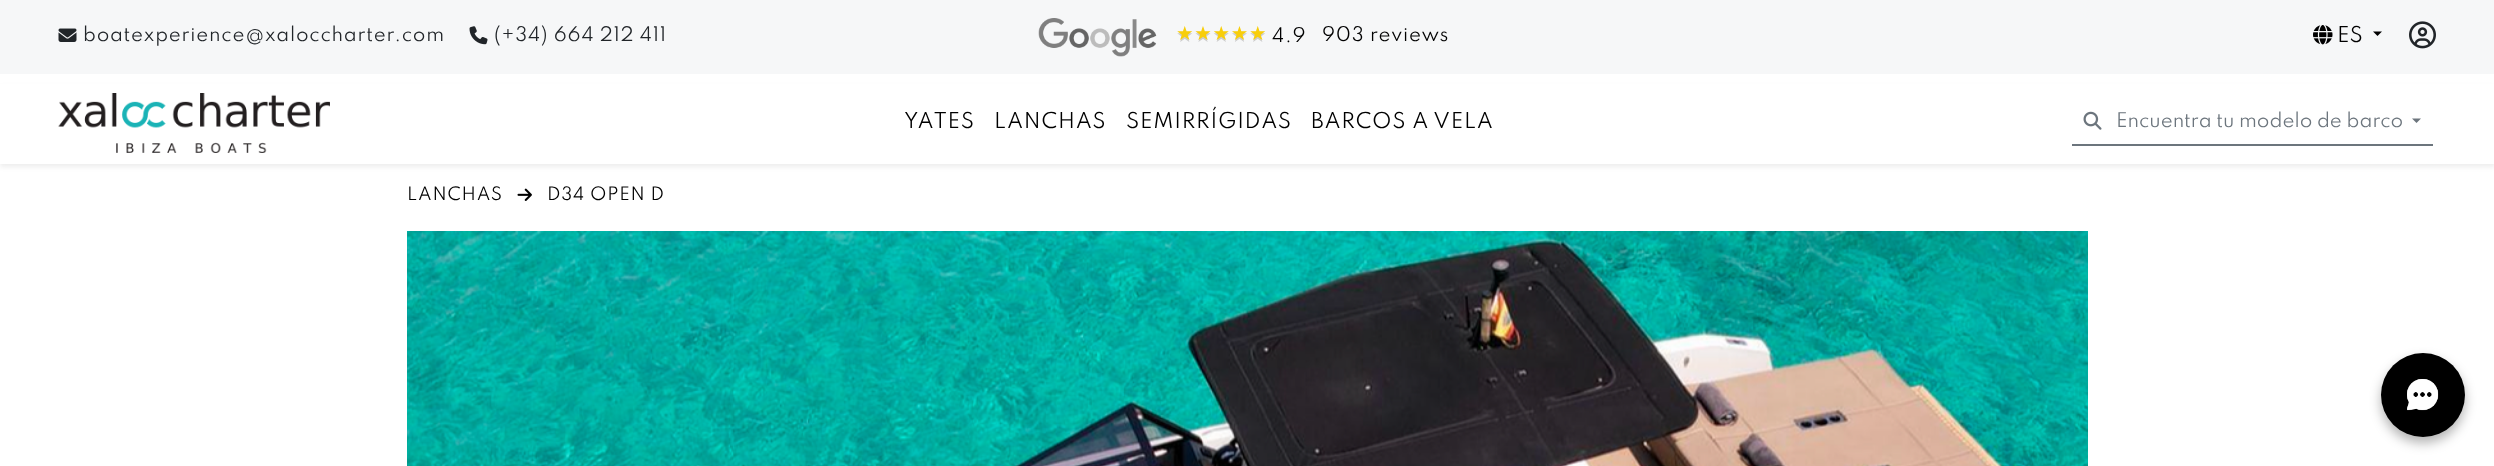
<svg xmlns="http://www.w3.org/2000/svg" width="2494" height="466">
<style>
.a{font:18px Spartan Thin;letter-spacing:0.75px;fill:#212529}
.b{font:19.5px DejaVu Sans;letter-spacing:0.75px;fill:#ccc}
.c{font:19.5px DejaVu Sans;letter-spacing:0.75px;fill:#f8ce0b}
.d{font:18px Spartan Thin;letter-spacing:0.75px;fill:#000}
.e{font:19.5px Spartan Thin;fill:#000}
.f{font:19.5px Spartan Thin;letter-spacing:0.75px;fill:#000}
.g{font:18px Spartan Thin;fill:#6c757d}
.h{font:16.5px Spartan Thin;letter-spacing:0.75px;fill:#000}
</style>
<rect width="100%" height="100%" fill="#fff"/>
<path fill="#f6f7f8" d="M0 0h2494v74H0z"/>
<image href="1.png" x="58" y="28" width="19" height="14"/>
<image href="2.png" x="469" y="26" width="19" height="19"/>
<image href="3.png" x="1038" y="18" width="119" height="39"/>
<image href="4.png" x="2313" y="25" width="20" height="20"/>
<path fill="#000" d="M2373 31.5h9l-4.5 4.5z"/>
<image href="5.png" x="2409" y="21" width="27" height="28"/>
<path fill="#00000012" filter="blur(2.5px)" d="M0 87h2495v80H0z"/>
<path fill="#fff" d="M0 84h2494v80H0z"/>
<image href="6.png" x="58" y="93" width="272" height="60"/>
<path fill="#6c757d" d="M2072 144h361v2H2072z"/>
<image href="7.png" x="2083" y="111" width="19" height="19"/>
<path fill="#6c757d" d="M2412 118.5h9l-4.5 4.5z"/>
<image href="8.png" x="517" y="188" width="15" height="13"/>
<image href="9.png" x="407" y="231" width="1681" height="235"/>
<rect fill="#0000004d" filter="blur(6px)" x="2381" y="359" width="84" height="84" rx="42"/>
<circle fill="#000" cx="2423" cy="395" r="42"/>
<image href="10.png" x="2407" y="379" width="32" height="32"/>
<text class="a" x="83" y="41">boatexperience@xaloccharter.com</text>
<text class="a" x="494" y="41">(+34) 664 212 411</text>
<text class="b" x="1176" y="42">★★★★★</text>
<text class="c" x="1176" y="40">★★★★★</text>
<text class="d" x="1272" y="42">4.9</text>
<text class="d" x="1322" y="41">903 reviews</text>
<text class="e" x="2337" y="42">ES</text>
<text class="f" x="904" y="128">YATES</text>
<text class="f" x="994" y="128">LANCHAS</text>
<text class="f" x="1126" y="128">SEMIRRÍGIDAS</text>
<text class="f" x="1311" y="128">BARCOS A VELA</text>
<text class="g" x="2116" y="127">Encuentra tu modelo de barco</text>
<text class="h" x="407" y="200">LANCHAS</text>
<text class="h" x="547" y="200">D34 OPEN D</text>
</svg>
